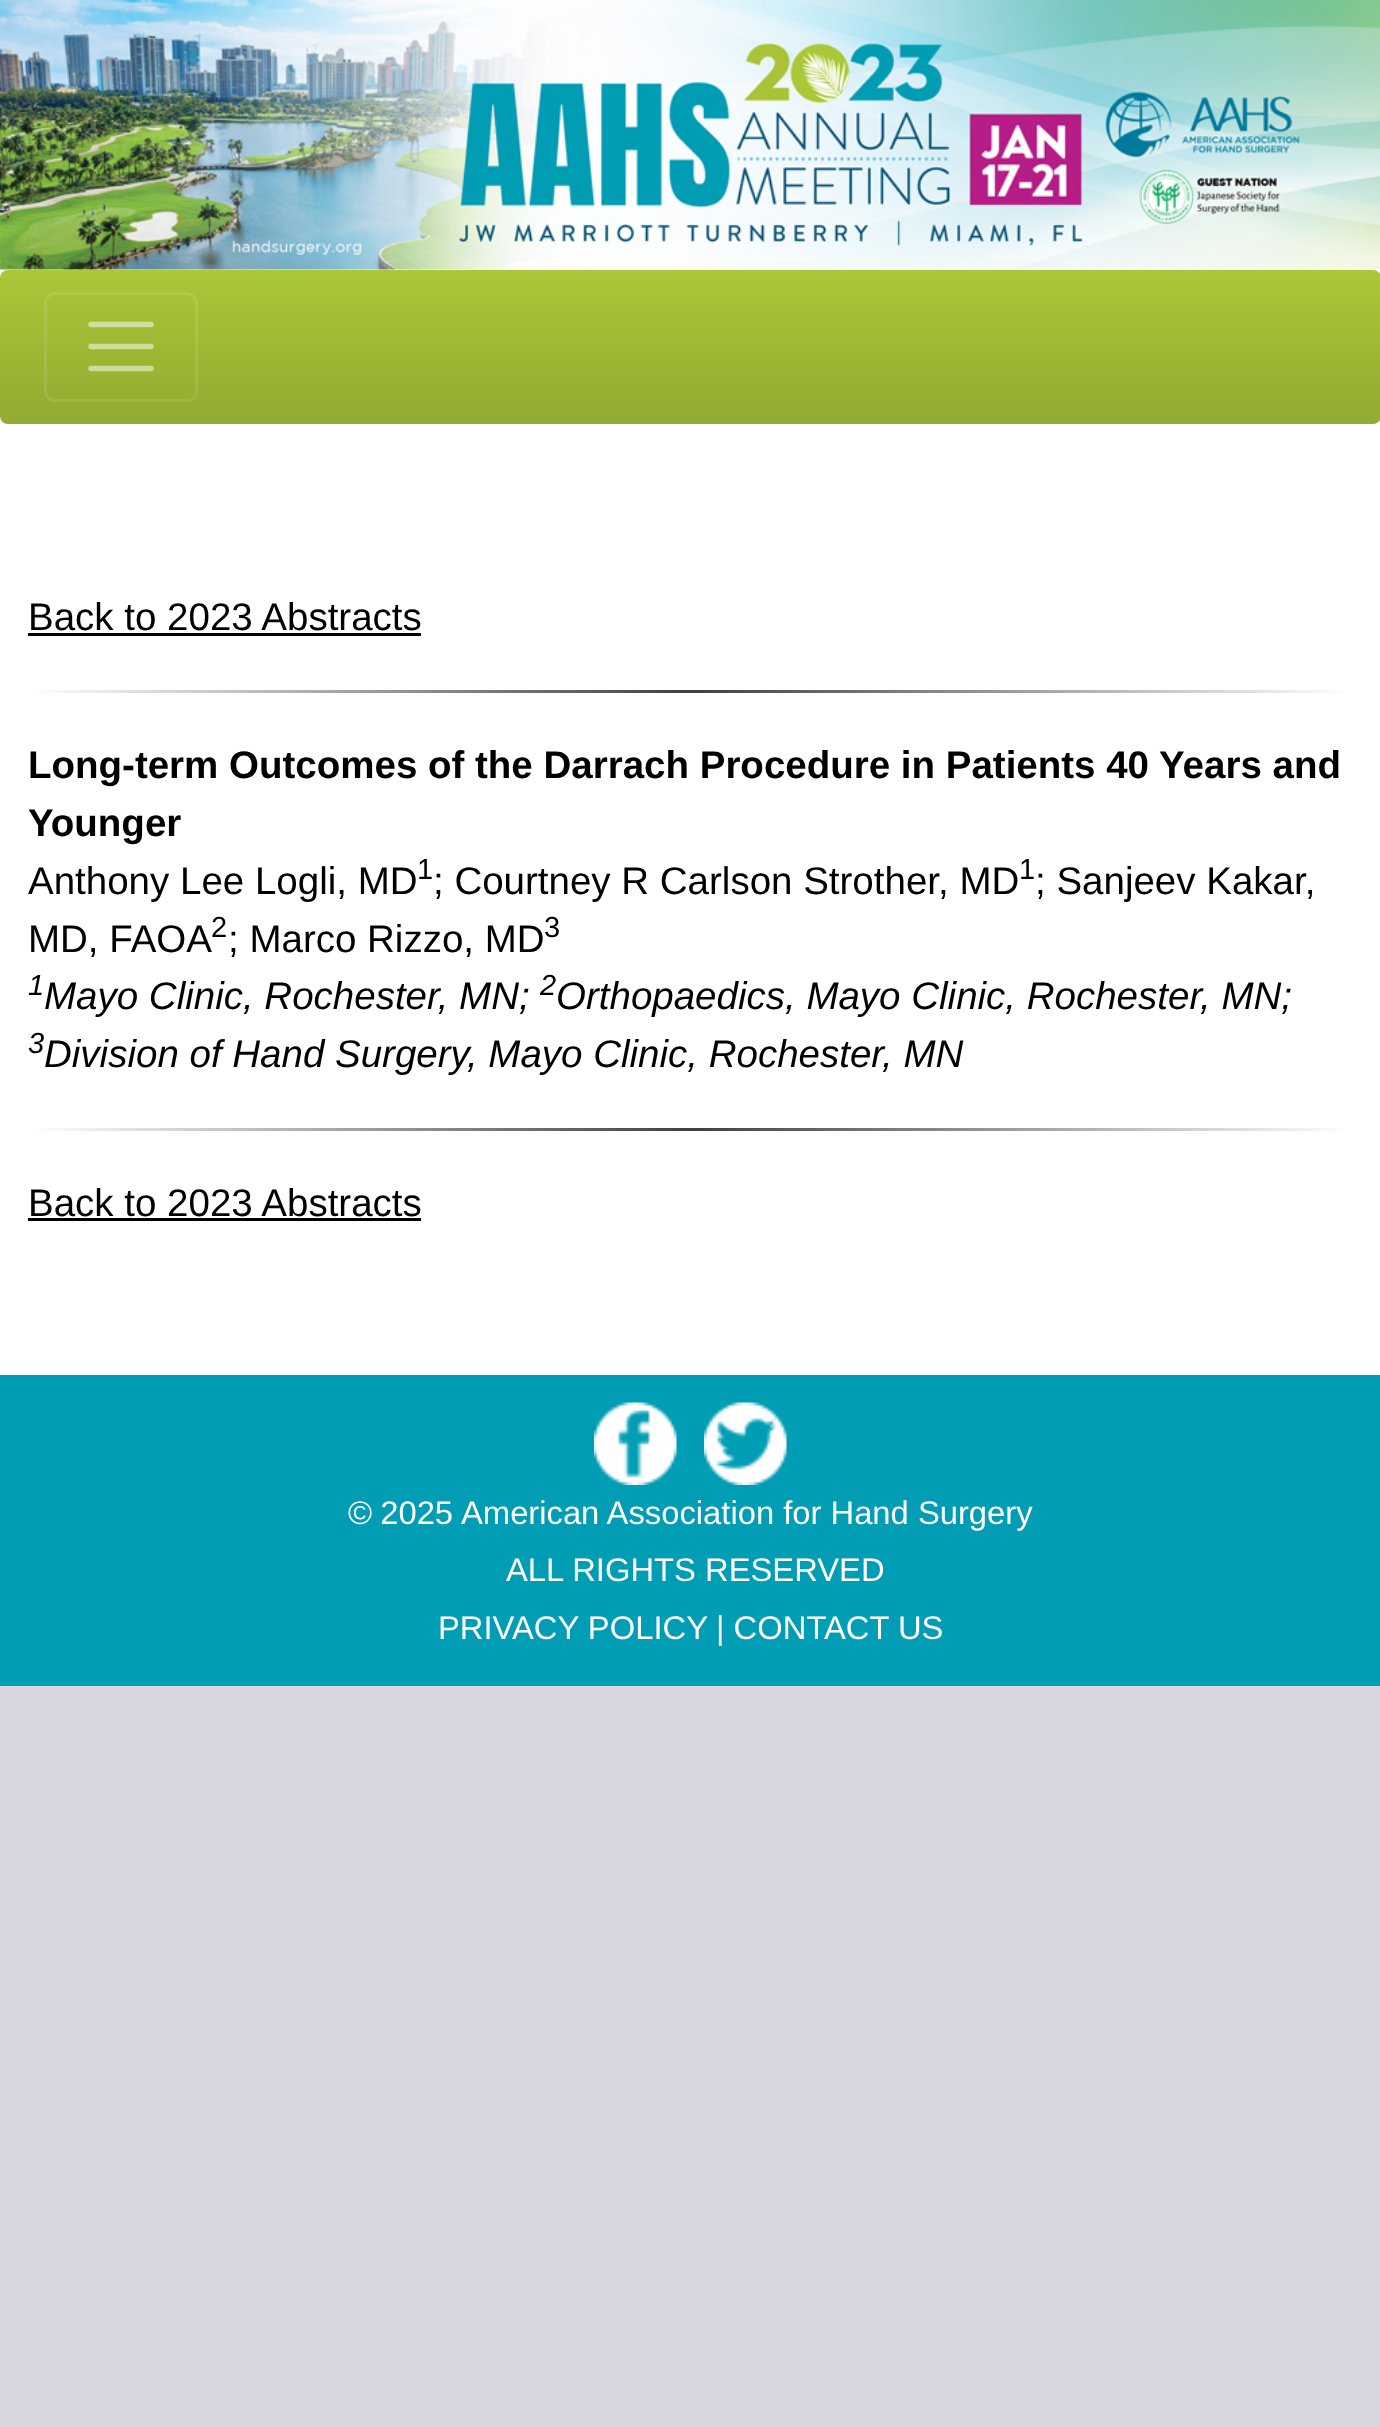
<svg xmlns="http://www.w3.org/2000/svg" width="1380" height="2427">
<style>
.a{font:38.5px Liberation Sans;fill:#000}
.b{font:bold 38.5px Liberation Sans;fill:#000}
.c{font:29px Liberation Sans;fill:#000}
.d{font:italic 29px Liberation Sans;fill:#000}
.e{font:italic 38.5px Liberation Sans;fill:#000}
.f{font:32.75px Liberation Sans;fill:#fff}
</style>
<defs>
<linearGradient id="g1" gradientUnits="userSpaceOnUse" x1="690" y1="269" x2="690" y2="424"><stop offset="0" stop-color="#abc838"/><stop offset="1" stop-color="#92aa31"/></linearGradient>
<linearGradient id="g2" gradientUnits="userSpaceOnUse" x1="28" y1="692" x2="1353" y2="692"><stop offset="0" stop-color="#fff"/><stop offset="0.5" stop-color="#404040"/><stop offset="1" stop-color="#fff"/></linearGradient>
<linearGradient id="g3" gradientUnits="userSpaceOnUse" x1="28" y1="1129" x2="1353" y2="1129"><stop offset="0" stop-color="#fff"/><stop offset="0.5" stop-color="#404040"/><stop offset="1" stop-color="#fff"/></linearGradient>
</defs>
<rect width="100%" height="100%" fill="#d8d7df"/>
<path fill="#fff" d="M0 269h1380v1106H0z"/>
<image href="1.png" x="0" y="0" width="1380" height="270"/>
<rect fill="url(#g1)" y="270" width="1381" height="154" rx="8"/>
<rect fill="none" stroke="#ffffff1a" stroke-width="3" x="45.5" y="293.5" width="151" height="107" rx="9.5"/>
<path fill="none" stroke="#ffffff80" stroke-width="5.5" stroke-linecap="round" d="M91 324.5h60m-60 22h60m-60 22h60"/>
<path fill="#000" d="M28 633h393v3H28z"/>
<path fill="url(#g2)" d="M37 690h1307v3H37z"/>
<path fill="url(#g3)" d="M37 1128h1307v3H37z"/>
<path fill="#000" d="M28 1218h393v3H28z"/>
<path fill="#019db4" d="M0 1375h1380v311H0z"/>
<image href="2.png" x="594" y="1402" width="83" height="83"/>
<image href="3.png" x="704" y="1402" width="83" height="83"/>
<text class="a" x="28" y="630">Back to 2023 Abstracts</text>
<text class="b" x="28" y="778">Long-term Outcomes of the Darrach Procedure in Patients 40 Years and</text>
<text class="b" x="28" y="836">Younger</text>
<text class="a" x="28" y="894">Anthony Lee Logli, MD</text>
<text class="c" x="417" y="879">1</text>
<text class="a" x="433" y="894">; Courtney R Carlson Strother, MD</text>
<text class="c" x="1019" y="879">1</text>
<text class="a" x="1035" y="894">; Sanjeev Kakar,</text>
<text class="a" x="28" y="952">MD, FAOA</text>
<text class="c" x="211" y="937">2</text>
<text class="a" x="228" y="952">; Marco Rizzo, MD</text>
<text class="c" x="544" y="937">3</text>
<text class="d" x="28" y="995">1</text>
<text class="e" x="44" y="1009">Mayo Clinic, Rochester, MN;</text>
<text class="d" x="540" y="995">2</text>
<text class="e" x="556" y="1009">Orthopaedics, Mayo Clinic, Rochester, MN;</text>
<text class="d" x="28" y="1053">3</text>
<text class="e" x="44" y="1067">Division of Hand Surgery, Mayo Clinic, Rochester, MN</text>
<text class="a" x="28" y="1216">Back to 2023 Abstracts</text>
<text class="f" x="348" y="1524" word-spacing="-1">© 2025</text>
<text class="f" x="461" y="1524">American Association for Hand Surgery</text>
<text class="f" x="506" y="1581">ALL RIGHTS RESERVED</text>
<text class="f" x="438" y="1639">PRIVACY POLICY</text>
<text class="f" x="716" y="1639">| CONTACT US</text>
</svg>
